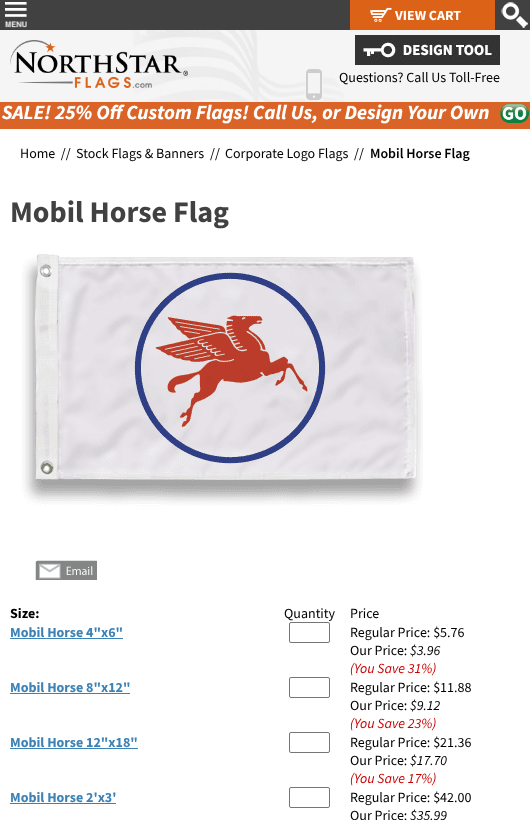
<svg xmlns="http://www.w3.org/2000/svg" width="530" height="820">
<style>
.a{font:bold 14px Source Sans Pro;fill:#fff}
.b{font:14px Source Sans Pro;fill:#000}
.c{font:600 14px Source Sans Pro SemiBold;fill:#000}
.d{font:bold 30px Source Sans Pro;fill:#414141}
.e{font:bold 14px Source Sans Pro;fill:#000}
.f{font:bold 14px Source Sans Pro;fill:#3c82b6}
.g{font:italic 14px Source Sans Pro;fill:#000}
.h{font:italic 14px Source Sans Pro;fill:#ca0000}
</style>
<rect width="100%" height="100%" fill="#fff"/>
<path fill="#414141" d="M0 0h530v30H0z"/>
<image href="1.png" x="5" y="2" width="22" height="26"/>
<path fill="#dc6217" d="M350 0h145v30H350z"/>
<image href="2.png" x="370" y="7" width="22" height="15"/>
<image href="3.png" x="501" y="2" width="27" height="26"/>
<path fill="#f5f5f5" d="M0 30h530v72H0z"/>
<image href="4.png" x="133" y="30" width="211" height="72"/>
<image href="5.png" x="10" y="40" width="178" height="48"/>
<image href="6.png" x="355" y="35" width="145" height="30"/>
<image href="7.png" x="305" y="69" width="18" height="32"/>
<path fill="#da6427" d="M0 102h530v27H0z"/>
<image href="8.png" x="2" y="104" width="527" height="20"/>
<image href="9.png" x="21" y="254" width="402" height="252"/>
<image href="10.png" x="35" y="560" width="62" height="20"/>
<path fill="#3c82b6" d="M10 638h113v1H10z"/>
<rect fill="none" stroke="#767676" x="289.5" y="622.5" width="40" height="20" rx="1.5"/>
<path fill="#3c82b6" d="M10 693h120v1H10z"/>
<rect fill="none" stroke="#767676" x="289.5" y="677.5" width="40" height="20" rx="1.5"/>
<path fill="#3c82b6" d="M10 748h128v1H10z"/>
<rect fill="none" stroke="#767676" x="289.5" y="732.5" width="40" height="20" rx="1.5"/>
<path fill="#3c82b6" d="M10 803h106v1H10z"/>
<rect fill="none" stroke="#767676" x="289.5" y="787.5" width="40" height="20" rx="1.5"/>
<text class="a" x="395" y="20">VIEW CART</text>
<text class="b" x="339" y="82">Questions? Call Us Toll-Free</text>
<text class="b" xml:space="preserve" x="20" y="158">Home  //</text>
<text class="b" x="76" y="158">Stock Flags &amp; Banners</text>
<text class="b" x="210" y="158">//</text>
<text class="b" x="225" y="158">Corporate Logo Flags</text>
<text class="b" x="354" y="158">//</text>
<text class="c" x="370" y="158">Mobil Horse Flag</text>
<text class="d" x="10" y="222">Mobil Horse Flag</text>
<text class="e" x="10" y="618">Size:</text>
<text class="b" x="284" y="618">Quantity</text>
<text class="b" x="350" y="618">Price</text>
<text class="f" x="10" y="637">Mobil Horse 4"x6"</text>
<text class="b" x="350" y="637">Regular Price: $5.76</text>
<text class="b" x="350" y="655">Our Price:</text>
<text class="g" x="410" y="655">$3.96</text>
<text class="h" x="350" y="673">(You Save 31%)</text>
<text class="f" x="10" y="692">Mobil Horse 8"x12"</text>
<text class="b" x="350" y="692">Regular Price: $11.88</text>
<text class="b" x="350" y="710">Our Price:</text>
<text class="g" x="410" y="710">$9.12</text>
<text class="h" x="350" y="728">(You Save 23%)</text>
<text class="f" x="10" y="747">Mobil Horse 12"x18"</text>
<text class="b" x="350" y="747">Regular Price: $21.36</text>
<text class="b" x="350" y="765">Our Price:</text>
<text class="g" x="410" y="765">$17.70</text>
<text class="h" x="350" y="783">(You Save 17%)</text>
<text class="f" x="10" y="802">Mobil Horse 2'x3'</text>
<text class="b" x="350" y="802">Regular Price: $42.00</text>
<text class="b" x="350" y="820">Our Price:</text>
<text class="g" x="410" y="820">$35.99</text>
</svg>
